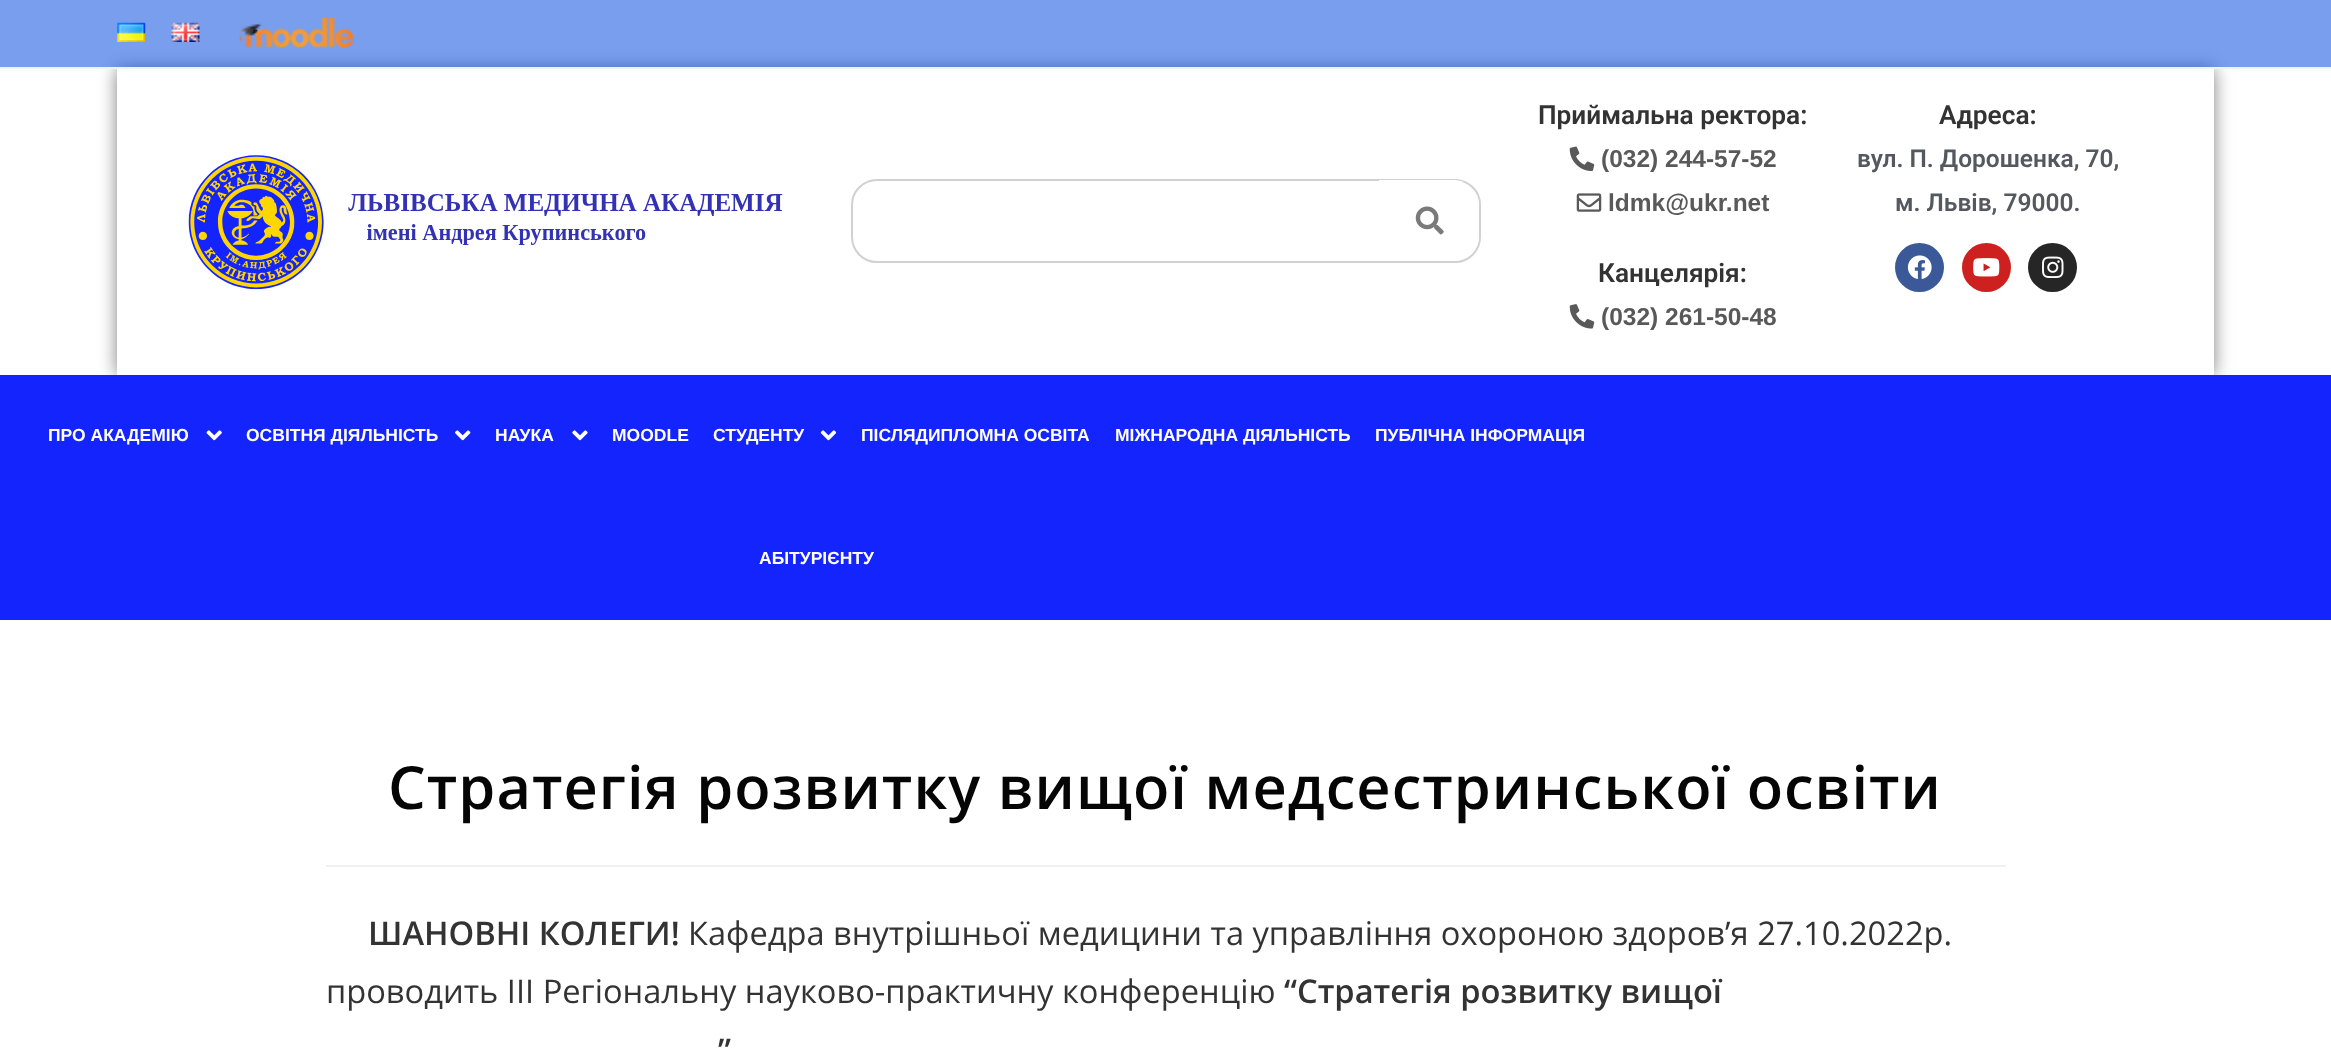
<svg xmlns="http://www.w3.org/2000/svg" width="2331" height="1048">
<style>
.a{font:600 26.25px Roboto;fill:#333}
.b{font:bold 24.5px Liberation Sans;fill:#595959}
.c{font:600 24.5px Roboto;fill:#54595f}
.d{font:bold 17.5px Liberation Sans;fill:#fff}
.e{font:600 59.5px Open Sans;letter-spacing:1.05px;fill:#050505}
.f{font:600 32.65px Open Sans;fill:#333}
.g{font:32.65px Open Sans;fill:#333}
</style>
<defs>
<clipPath id="clip1"><path d="M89 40h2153v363h-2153zm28 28h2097v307h-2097z" clip-rule="evenodd"/></clipPath>
</defs>
<rect width="100%" height="100%" fill="#fff"/>
<g clip-path="url(#clip1)">
<path fill="#00000080" filter="blur(9px)" d="M117 68h2097v307H117z"/>
</g>
<path fill="#1858e294" d="M0 0h2331v67H0z"/>
<path fill="#f1f1f1" d="M0 67h2331v2H0z"/>
<image href="1.png" x="117" y="22" width="29" height="20"/>
<image href="2.png" x="171" y="22" width="29" height="20"/>
<image href="3.png" x="239" y="17" width="115" height="31"/>
<image href="4.png" x="188" y="155" width="595" height="134"/>
<rect fill="none" stroke="#d1d1d1" stroke-width="2" x="852" y="180" width="628" height="82" rx="25"/>
<path fill="#fff" fill-rule="evenodd" d="M1379 180v81h75c3 0 7-1 10-2h-83v-77h83c-3-1-7-2-10-2zm100 25c0-3-1-7-2-10v51c1-3 2-7 2-10z"/>
<image href="5.png" x="1415" y="206" width="29" height="29"/>
<image href="6.png" x="1569" y="146" width="26" height="26"/>
<image href="7.png" x="1576" y="193" width="26" height="19"/>
<image href="8.png" x="1569" y="304" width="26" height="25"/>
<circle fill="#3b5998" cx="1919.5" cy="267.5" r="24.5"/>
<image href="9.png" x="1907" y="255" width="25" height="24"/>
<circle fill="#cd201f" cx="1986.5" cy="267.5" r="24.5"/>
<image href="10.png" x="1973" y="258" width="27" height="19"/>
<circle fill="#262626" cx="2052.5" cy="267.5" r="24.5"/>
<image href="11.png" x="2042" y="256" width="22" height="22"/>
<path fill="#1424fd" d="M0 375h2331v245H0z"/>
<image href="12.png" x="206" y="430" width="16" height="11"/>
<image href="13.png" x="455" y="430" width="16" height="11"/>
<image href="14.png" x="572" y="430" width="16" height="11"/>
<image href="15.png" x="820" y="430" width="17" height="11"/>
<path fill="#f1f1f1" d="M326 865h1680v2H326z"/>
<text class="a" x="1538" y="124">Приймальна ректора:</text>
<text class="b" x="1601" y="167">(032) 244-57-52</text>
<text class="b" x="1608" y="211">ldmk@ukr.net</text>
<text class="a" x="1598" y="282">Канцелярія:</text>
<text class="b" x="1601" y="325">(032) 261-50-48</text>
<text class="a" x="1939" y="124">Адреса:</text>
<text class="c" x="1857" y="167">вул. П. Дорошенка, 70,</text>
<text class="c" x="1895" y="211">м. Львів, 79000.</text>
<text class="d" x="48" y="441">ПРО АКАДЕМІЮ</text>
<text class="d" x="246" y="441">ОСВІТНЯ ДІЯЛЬНІСТЬ</text>
<text class="d" x="495" y="441">НАУКА</text>
<text class="d" x="612" y="441">MOODLE</text>
<text class="d" x="713" y="441">СТУДЕНТУ</text>
<text class="d" x="861" y="441">ПІСЛЯДИПЛОМНА ОСВІТА</text>
<text class="d" x="1115" y="441">МІЖНАРОДНА ДІЯЛЬНІСТЬ</text>
<text class="d" x="1375" y="441">ПУБЛІЧНА ІНФОРМАЦІЯ</text>
<text class="d" x="759" y="564">АБІТУРІЄНТУ</text>
<text class="e" x="388" y="809">Стратегія розвитку вищої медсестринської освіти</text>
<text class="f" x="368" y="945">ШАНОВНІ КОЛЕГИ!</text>
<text class="g" x="688" y="945">Кафедра внутрішньої медицини та управління охороною здоров’я 27.10.2022р.</text>
<text class="g" x="326" y="1003">проводить ІІІ Регіональну науково-практичну конференцію</text>
<text class="f" x="1284" y="1003">“Стратегія розвитку вищої</text>
<text class="f" x="718" y="1062">”</text>
</svg>
